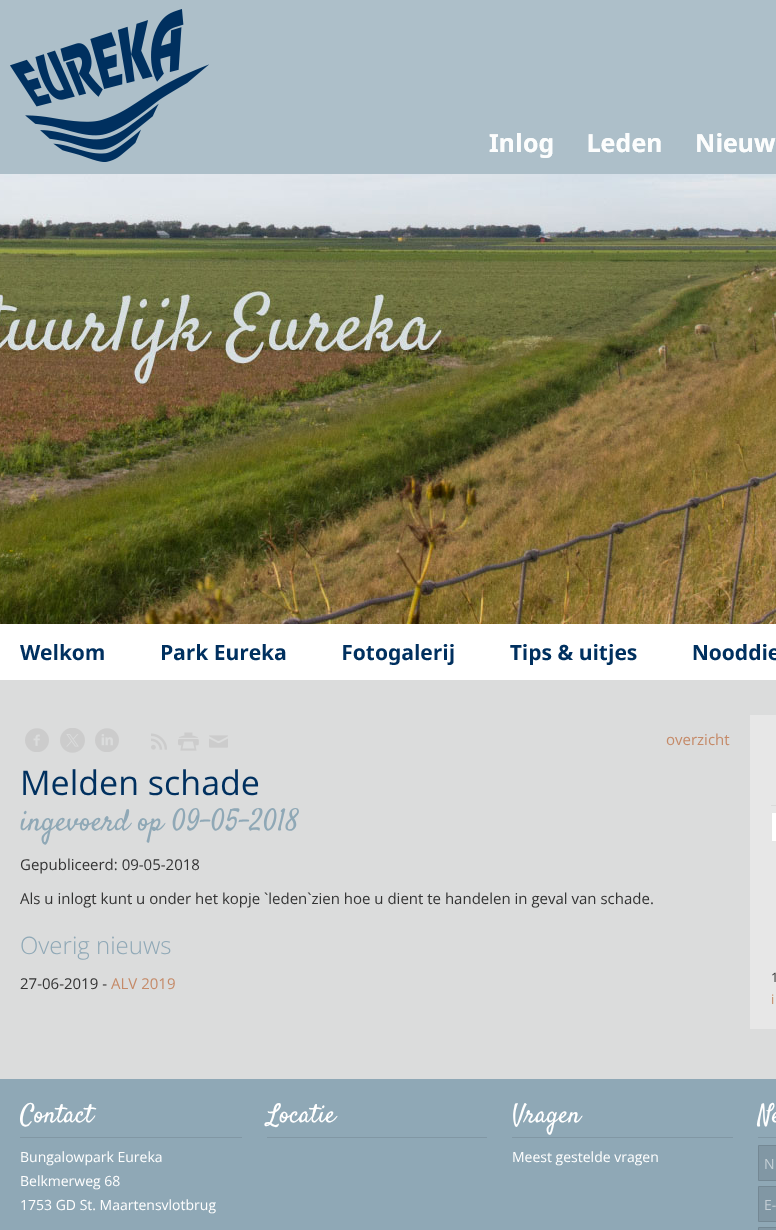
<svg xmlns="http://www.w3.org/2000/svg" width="776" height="1230">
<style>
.a{font:15px Open Sans;fill:#c58a68}
.b{font:34px Open Sans;fill:#00305f}
.c{font:30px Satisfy;fill:#8fa8b6}
.d{font:15px Open Sans;fill:#333}
.e{font:300 24px Open Sans;fill:#8fa8b6}
.f{font:13px Open Sans;fill:#333}
.g{font:13px Open Sans;fill:#c58a68}
.h{font:26px Satisfy;fill:#fff}
.i{font:14px Open Sans;fill:#fff}
.j{font:14px Open Sans;fill:#c5cfd5}
</style>
<rect width="100%" height="100%" fill="#fff"/>
<image href="1.png" x="0" y="0" width="776" height="1079"/>
<image href="2.png" x="10" y="9" width="199" height="153"/>
<image href="3.png" x="489" y="133" width="64" height="25"/>
<image href="4.png" x="588" y="133" width="73" height="20"/>
<image href="5.png" x="697" y="133" width="79" height="20"/>
<image href="6.png" x="0" y="174" width="776" height="450"/>
<image href="7.png" x="20" y="644" width="84" height="17"/>
<image href="8.png" x="162" y="644" width="124" height="17"/>
<image href="9.png" x="343" y="644" width="111" height="21"/>
<image href="10.png" x="510" y="644" width="127" height="21"/>
<image href="11.png" x="693" y="644" width="83" height="17"/>
<image href="12.png" x="25" y="728" width="24" height="24"/>
<image href="13.png" x="60" y="728" width="25" height="25"/>
<image href="14.png" x="95" y="728" width="24" height="24"/>
<image href="15.png" x="151" y="733" width="16" height="17"/>
<image href="16.png" x="178" y="732" width="21" height="19"/>
<image href="17.png" x="209" y="735" width="19" height="13"/>
<path fill="#e7e7e7" d="M750 715h26v314H750z"/>
<path fill="#dadada" d="M771 805h5v1H771z"/>
<path fill="#fff" stroke="#e6e6e6" d="M771.5 812.5h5v29H771.5z"/>
<path fill="#8fa8b6" d="M0 1079h776v151H0z"/>
<path fill="#8197a4" d="M20 1137h222v1H20z"/>
<path fill="#8197a4" d="M267 1137h220v1H267z"/>
<path fill="#8197a4" d="M512 1137h221v1H512z"/>
<path fill="#8197a4" d="M758 1137h18v1H758z"/>
<path fill="#8197a4" stroke="#748894" d="M758.5 1145.5h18v35H758.5z"/>
<path fill="#8197a4" stroke="#748894" d="M758.5 1186.5h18v35H758.5z"/>
<path fill="#8197a4" stroke="#748894" d="M758.5 1227.5h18v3H758.5z"/>
<text class="a" x="666" y="745">overzicht</text>
<text class="b" x="20" y="795">Melden schade</text>
<text class="c" x="20" y="830">ingevoerd op 09-05-2018</text>
<text class="d" x="20" y="870">Gepubliceerd: 09-05-2018</text>
<text class="d" x="20" y="904">Als u inlogt kunt u onder het kopje `leden`zien hoe u dient te handelen in geval van schade.</text>
<text class="e" x="20" y="954">Overig nieuws</text>
<text class="d" x="20" y="989">27-06-2019 -</text>
<text class="a" x="111" y="989">ALV 2019</text>
<text class="f" x="771" y="982">1</text>
<text class="g" x="771" y="1004">i</text>
<text class="h" x="20" y="1122">Contact</text>
<text class="i" x="20" y="1162">Bungalowpark Eureka</text>
<text class="i" x="20" y="1186">Belkmerweg 68</text>
<text class="i" x="20" y="1210">1753 GD St. Maartensvlotbrug</text>
<text class="h" x="267" y="1122">Locatie</text>
<text class="h" x="512" y="1122">Vragen</text>
<text class="i" x="512" y="1162">Meest gestelde vragen</text>
<text class="h" x="758" y="1122">Ne</text>
<text class="j" x="764" y="1169">N</text>
<text class="j" x="764" y="1210">E-</text>
</svg>
